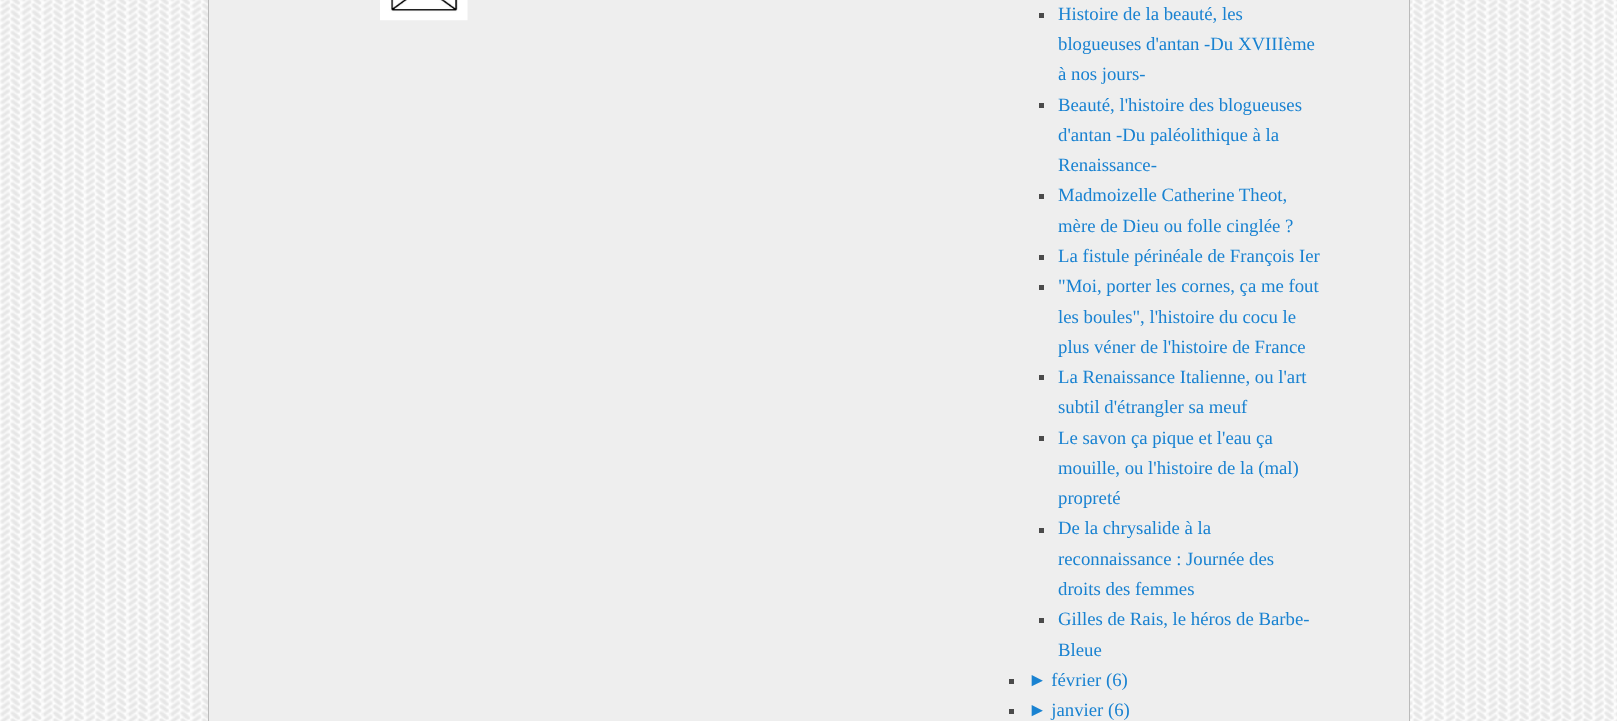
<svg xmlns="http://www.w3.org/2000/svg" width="1617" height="721">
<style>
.a{font:18.75px Liberation Serif;fill:#1982d1}
</style>
<rect width="100%" height="100%" fill="#fff"/>
<image href="1.png" x="0" y="0" width="1617" height="721"/>
<path fill="none" stroke="#bbb" d="M208.5 -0.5h1201v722H208.5z"/>
<path fill="#eee" d="M209 0h1200v721H209z"/>
<image href="2.png" x="380" y="0" width="88" height="21"/>
<path fill="#4a4a4a" d="M1039 13h5v5H1039z"/>
<path fill="#4a4a4a" d="M1039 103h5v5H1039z"/>
<path fill="#4a4a4a" d="M1039 194h5v5H1039z"/>
<path fill="#4a4a4a" d="M1039 255h5v5H1039z"/>
<path fill="#4a4a4a" d="M1039 285h5v5H1039z"/>
<path fill="#4a4a4a" d="M1039 375h5v5H1039z"/>
<path fill="#4a4a4a" d="M1039 436h5v5H1039z"/>
<path fill="#4a4a4a" d="M1039 528h5v5H1039z"/>
<path fill="#4a4a4a" d="M1039 618h5v5H1039z"/>
<path fill="#4a4a4a" d="M1009 679h5v5H1009z"/>
<path fill="#4a4a4a" d="M1009 709h5v5H1009z"/>
<text class="a" x="1058" y="20">Histoire de la beauté, les</text>
<text class="a" x="1058" y="50">blogueuses d'antan -Du XVIIIème</text>
<text class="a" x="1058" y="80">à nos jours-</text>
<text class="a" x="1058" y="111">Beauté, l'histoire des blogueuses</text>
<text class="a" x="1058" y="141">d'antan -Du paléolithique à la</text>
<text class="a" x="1058" y="171">Renaissance-</text>
<text class="a" x="1058" y="201">Madmoizelle Catherine Theot,</text>
<text class="a" x="1058" y="232">mère de Dieu ou folle cinglée ?</text>
<text class="a" x="1058" y="262">La fistule périnéale de François Ier</text>
<text class="a" x="1058" y="292">"Moi, porter les cornes, ça me fout</text>
<text class="a" x="1058" y="323">les boules", l'histoire du cocu le</text>
<text class="a" x="1058" y="353">plus véner de l'histoire de France</text>
<text class="a" x="1058" y="383">La Renaissance Italienne, ou l'art</text>
<text class="a" x="1058" y="413">subtil d'étrangler sa meuf</text>
<text class="a" x="1058" y="444">Le savon ça pique et l'eau ça</text>
<text class="a" x="1058" y="474">mouille, ou l'histoire de la (mal)</text>
<text class="a" x="1058" y="504">propreté</text>
<text class="a" x="1058" y="534">De la chrysalide à la</text>
<text class="a" x="1058" y="565">reconnaissance : Journée des</text>
<text class="a" x="1058" y="595">droits des femmes</text>
<text class="a" x="1058" y="625">Gilles de Rais, le héros de Barbe-</text>
<text class="a" x="1058" y="656">Bleue</text>
<text class="a" x="1028" y="686">► février (6)</text>
<text class="a" x="1028" y="716">► janvier (6)</text>
</svg>
